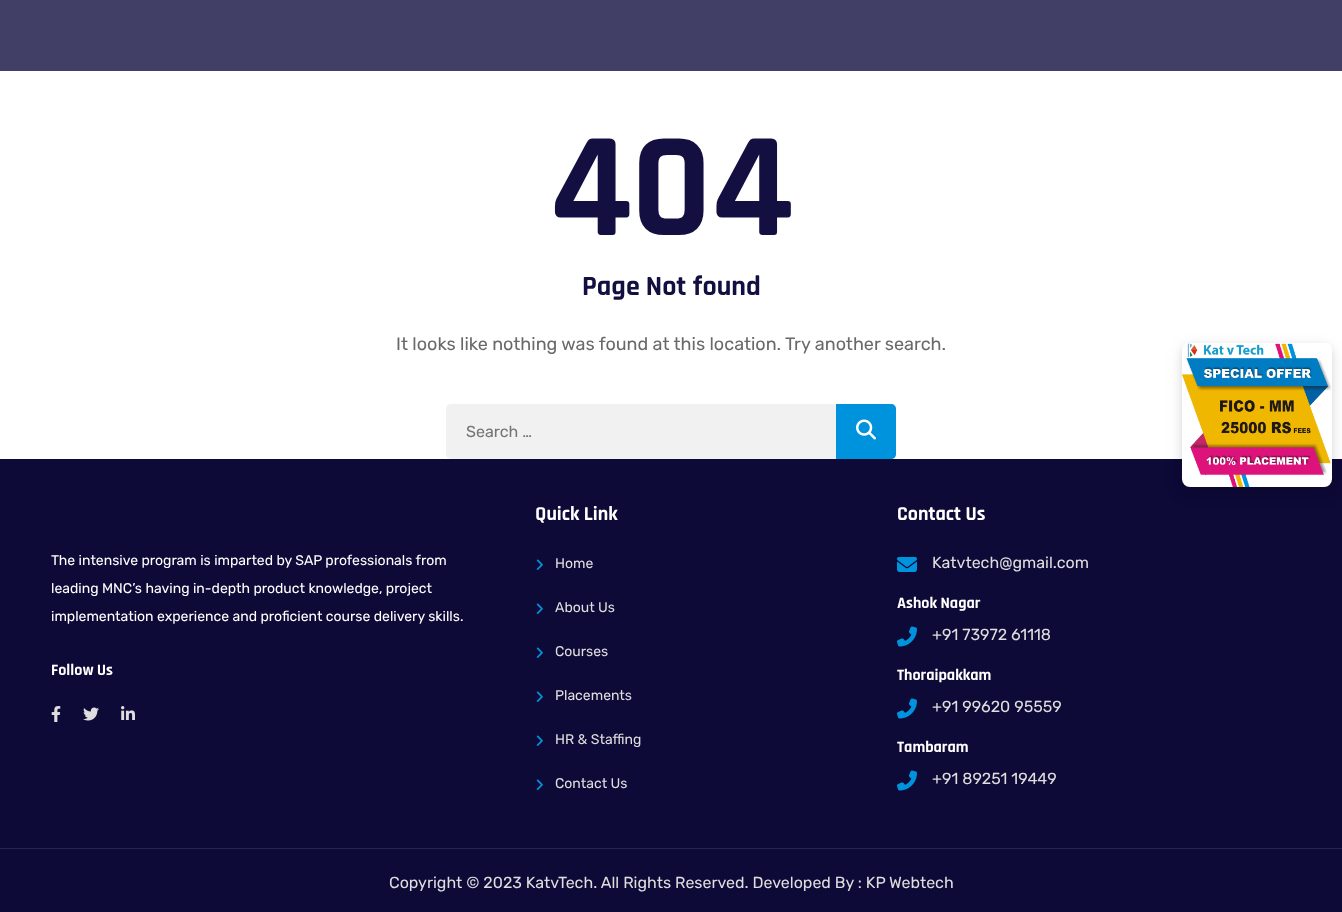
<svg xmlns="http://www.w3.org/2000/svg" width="1342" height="912">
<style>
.a{font:bold 150px Rajdhani;fill:#130f40}
.b{font:bold 28px Rajdhani;fill:#130f40}
.c{font:300 18px Rubik;fill:#696969}
.d{font:300 16px Rubik;fill:#757575}
.e{font:300 14px Rubik;fill:#fff}
.f{font:bold 16px Rajdhani;fill:#fff}
.g{font:bold 20px Rajdhani;fill:#fff}
.h{font:300 14px Rubik;fill:#dedede}
.i{font:300 16px Rubik;fill:#dedede}
</style>
<rect width="100%" height="100%" fill="#fff"/>
<path fill="#423f66" d="M0 0h1342v71H0z"/>
<rect fill="#f1f1f1" x="446" y="404" width="450" height="55" rx="5"/>
<path fill="#0093dd" d="M836 404h55c3 0 5 2 5 5v45c0 3-2 5-5 5h-55z"/>
<image href="1.png" x="856" y="419" width="20" height="21"/>
<path fill="#0e0a38" d="M0 459h1342v389H0z"/>
<rect fill="#0000000f" filter="blur(10px)" x="1182" y="348" width="150" height="145" rx="8"/>
<rect fill="#0000001f" filter="blur(4px)" x="1182" y="346" width="150" height="145" rx="8"/>
<image href="2.png" x="1182" y="343" width="150" height="144"/>
<image href="3.png" x="51" y="706" width="10" height="16"/>
<image href="4.png" x="83" y="707" width="16" height="14"/>
<image href="5.png" x="121" y="706" width="14" height="14"/>
<image href="6.png" x="536" y="559" width="7" height="11"/>
<image href="6.png" x="536" y="603" width="7" height="11"/>
<image href="6.png" x="536" y="647" width="7" height="11"/>
<image href="6.png" x="536" y="691" width="7" height="11"/>
<image href="6.png" x="536" y="735" width="7" height="11"/>
<image href="6.png" x="536" y="779" width="7" height="11"/>
<image href="7.png" x="897" y="557" width="20" height="15"/>
<image href="8.png" x="897" y="626" width="20" height="21"/>
<image href="8.png" x="897" y="698" width="20" height="21"/>
<image href="8.png" x="897" y="770" width="20" height="21"/>
<path fill="#0e0a38" d="M0 849h1342v63H0z"/>
<path fill="#26234c" d="M0 848h1342v1H0z"/>
<text class="a" x="550" y="235">404</text>
<text class="b" x="582" y="295">Page Not found</text>
<text class="c" x="396" y="350">It looks like nothing was found at this location. Try another search.</text>
<text class="d" x="466" y="437">Search …</text>
<text class="e" x="51" y="565">The intensive program is imparted by SAP professionals from</text>
<text class="e" x="51" y="593">leading MNC’s having in-depth product knowledge, project</text>
<text class="e" x="51" y="621">implementation experience and proficient course delivery skills.</text>
<text class="f" x="51" y="675">Follow Us</text>
<text class="g" x="535" y="520">Quick Link</text>
<text class="h" x="555" y="568">Home</text>
<text class="h" x="555" y="612">About Us</text>
<text class="h" x="555" y="656">Courses</text>
<text class="h" x="555" y="700">Placements</text>
<text class="h" x="555" y="744">HR &amp; Staffing</text>
<text class="h" x="555" y="788">Contact Us</text>
<text class="g" x="897" y="520">Contact Us</text>
<text class="i" x="932" y="568">Katvtech@gmail.com</text>
<text class="f" x="897" y="608">Ashok Nagar</text>
<text class="i" x="932" y="640">+91 73972 61118</text>
<text class="f" x="897" y="680">Thoraipakkam</text>
<text class="i" x="932" y="712">+91 99620 95559</text>
<text class="f" x="897" y="752">Tambaram</text>
<text class="i" x="932" y="784">+91 89251 19449</text>
<text class="i" x="389" y="888">Copyright © 2023 KatvTech. All Rights Reserved. Developed By : KP Webtech</text>
</svg>
